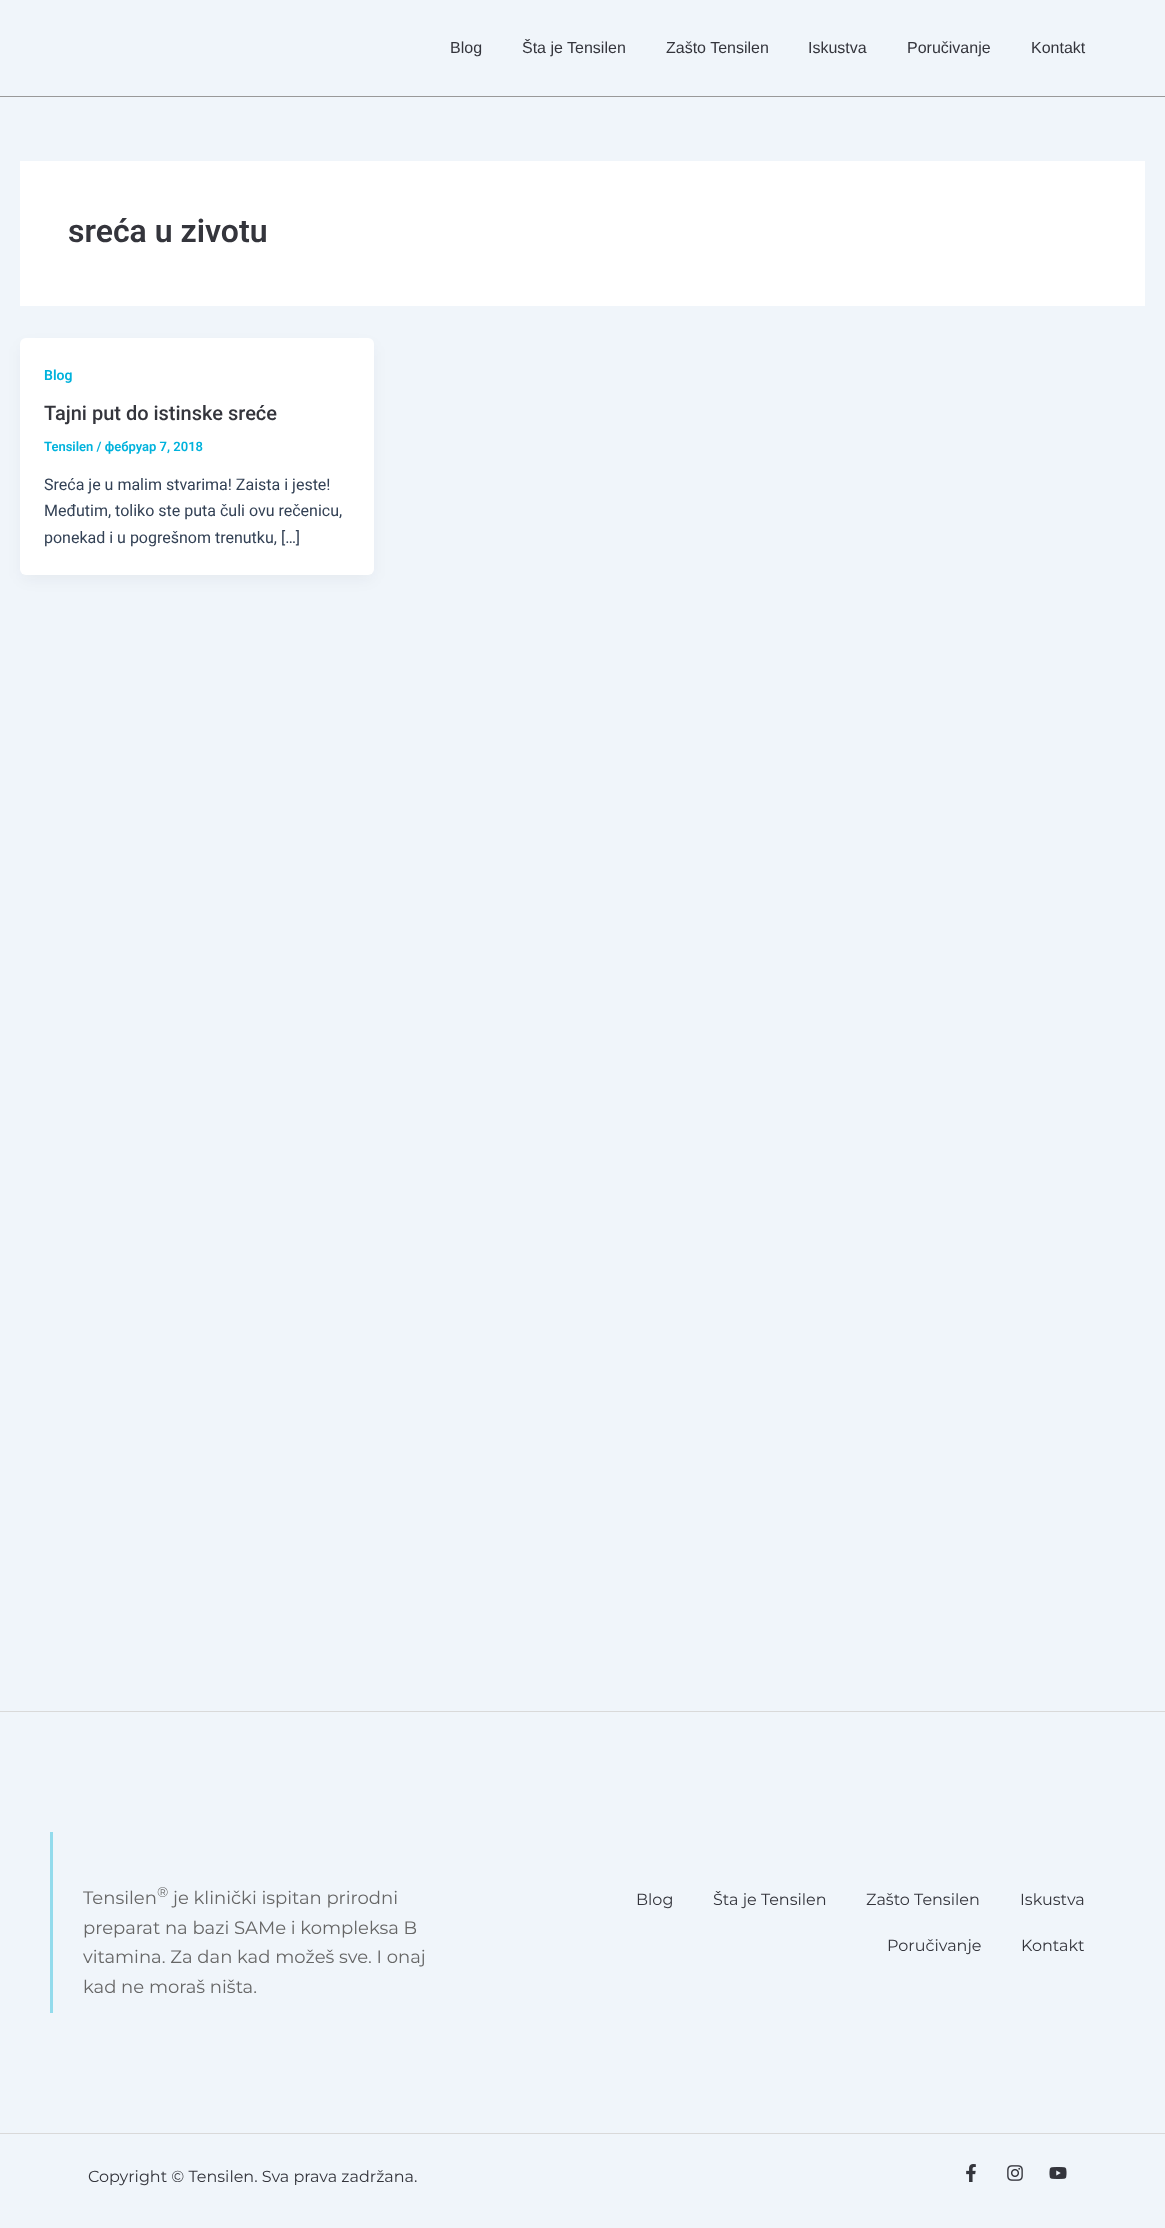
<svg xmlns="http://www.w3.org/2000/svg" width="1165" height="2228">
<style>
.a{font:16px Liberation Sans;fill:#34353c}
.b{font:600 32px Roboto;fill:#34353c}
.c{font:600 14px Roboto;fill:#00b2dc}
.d{font:500 20px Roboto;fill:#34353c}
.e{font:600 13px Roboto;fill:#00b2dc}
.f{font:16px Roboto;fill:#334155}
.g{font:100 18px Montserrat;fill:#666}
.h{font:100 14px Montserrat;fill:#666}
.i{font:100 16px Montserrat;fill:#34353c}
</style>
<rect width="100%" height="100%" fill="#f0f5fa"/>
<path fill="#999" d="M0 96h1165v1H0z"/>
<path fill="#fff" d="M20 161h1125v145H20z"/>
<rect fill="#1018280d" filter="blur(7.5px)" x="22" y="346" width="350" height="233" rx="4"/>
<rect fill="#fff" x="20" y="338" width="354" height="237" rx="6"/>
<path fill="#d9d9d9" d="M0 1711h1165v1H0z"/>
<path fill="#93dbec" d="M50 1832h3v181H50z"/>
<path fill="#d9d9d9" d="M0 2133h1165v1H0z"/>
<image href="1.png" x="966" y="2164" width="10" height="18"/>
<image href="2.png" x="1007" y="2165" width="16" height="16"/>
<image href="3.png" x="1049" y="2167" width="18" height="12"/>
<text class="a" x="450" y="53">Blog</text>
<text class="a" x="522" y="53">Šta je Tensilen</text>
<text class="a" x="666" y="53">Zašto Tensilen</text>
<text class="a" x="808" y="53">Iskustva</text>
<text class="a" x="907" y="53">Poručivanje</text>
<text class="a" x="1031" y="53">Kontakt</text>
<text class="b" x="68" y="242">sreća u zivotu</text>
<text class="c" x="44" y="380">Blog</text>
<text class="d" x="44" y="420">Tajni put do istinske sreće</text>
<text class="e" x="44" y="451">Tensilen / фебруар 7, 2018</text>
<text class="f" x="44" y="490">Sreća je u malim stvarima! Zaista i jeste!</text>
<text class="f" x="44" y="516">Međutim, toliko ste puta čuli ovu rečenicu,</text>
<text class="f" x="44" y="543">ponekad i u pogrešnom trenutku, […]</text>
<text class="g" x="83" y="1904">Tensilen</text>
<text class="h" x="157" y="1897">®</text>
<text class="g" x="173" y="1904">je klinički ispitan prirodni</text>
<text class="g" x="83" y="1934">preparat na bazi SAMe i kompleksa B</text>
<text class="g" x="83" y="1963">vitamina. Za dan kad možeš sve. I onaj</text>
<text class="g" x="83" y="1993">kad ne moraš ništa.</text>
<text class="i" x="636" y="1905">Blog</text>
<text class="i" x="713" y="1905">Šta je Tensilen</text>
<text class="i" x="866" y="1905">Zašto Tensilen</text>
<text class="i" x="1020" y="1905">Iskustva</text>
<text class="i" x="887" y="1951">Poručivanje</text>
<text class="i" x="1021" y="1951">Kontakt</text>
<text class="i" x="88" y="2182">Copyright © Tensilen. Sva prava zadržana.</text>
</svg>
